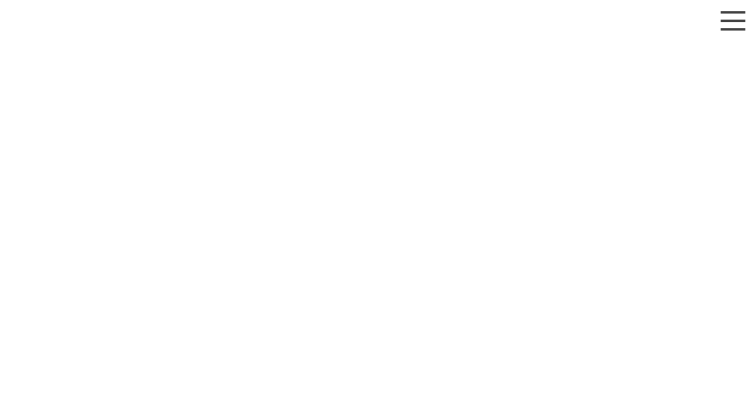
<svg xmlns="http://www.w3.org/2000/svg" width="755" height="403">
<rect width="100%" height="100%" fill="#fff"/>
<image href="1.png" x="720" y="11" width="26" height="20"/>
</svg>
